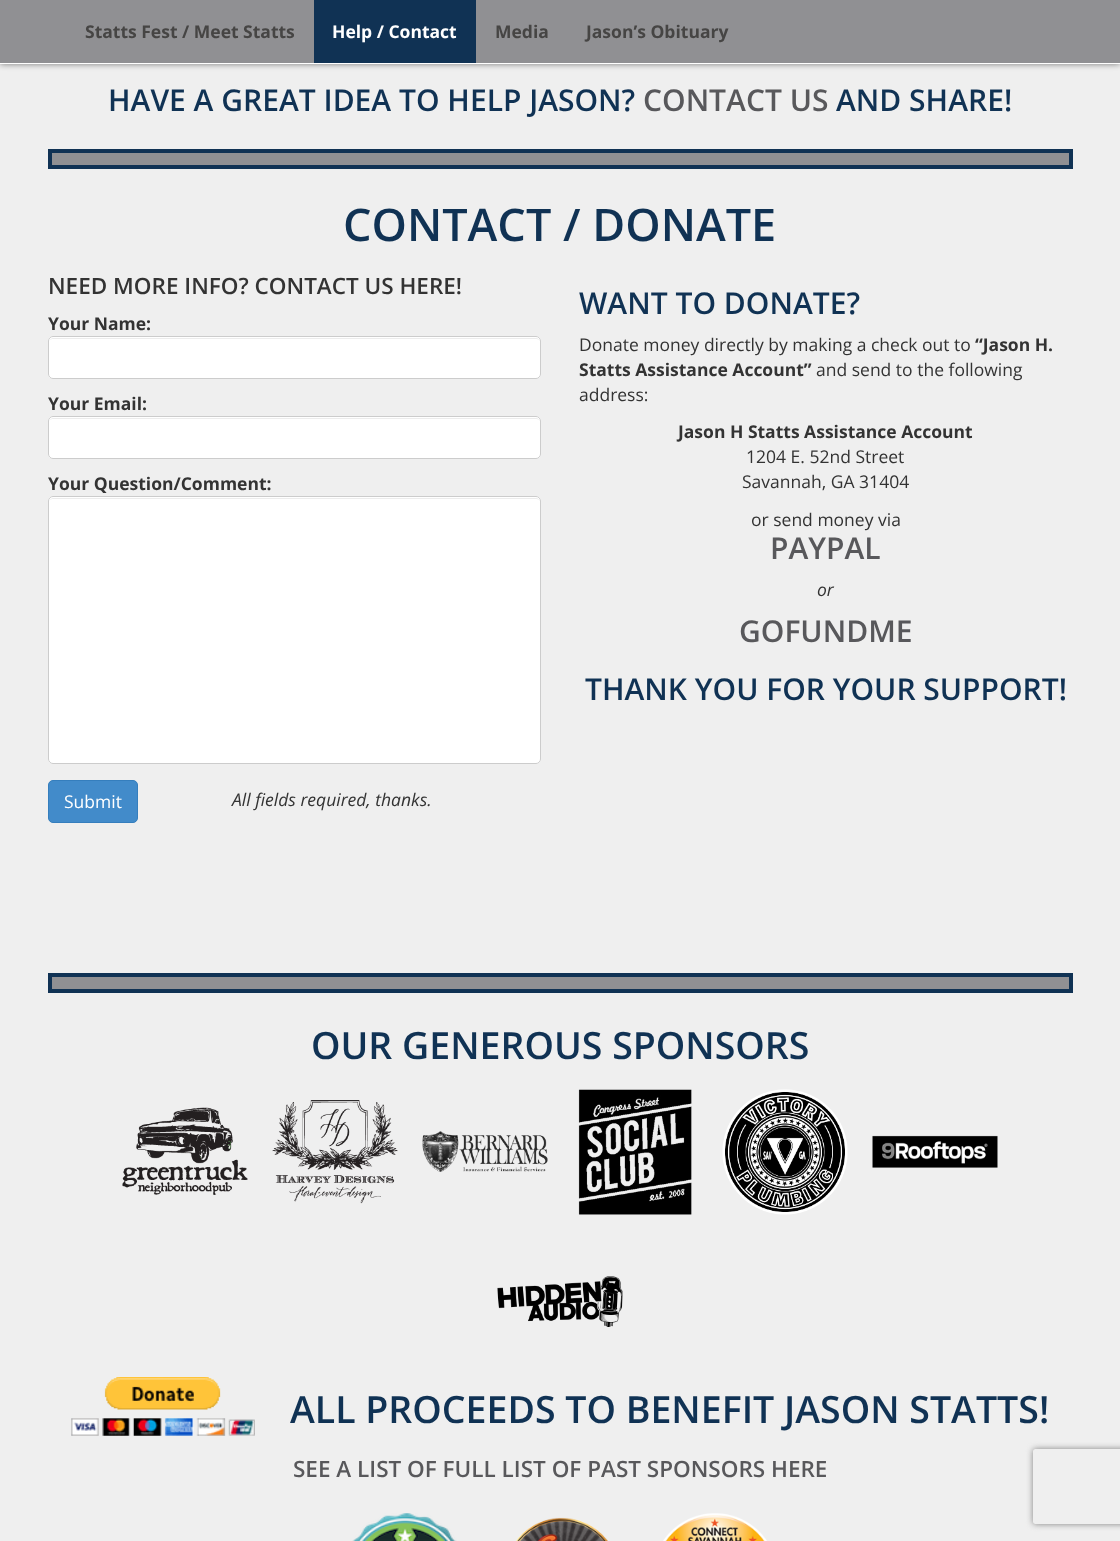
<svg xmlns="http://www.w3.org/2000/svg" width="1120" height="1541">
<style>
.a{font:bold 17.5px Open Sans;fill:#464544}
.b{font:bold 17.5px Open Sans;fill:#fff}
.c{font:600 30px Open Sans;fill:#103254}
.d{font:600 30px Open Sans;fill:#58585b}
.e{font:600 45px Open Sans;fill:#103254}
.f{font:600 22.5px Open Sans;fill:#333}
.g{font:bold 17.5px Open Sans;fill:#333}
.h{font:17.5px Open Sans;fill:#fff}
.i{font:italic 17.5px Open Sans;fill:#333}
.j{font:17.5px Open Sans;fill:#333}
.k{font:600 37.5px Open Sans;fill:#103254}
.l{font:600 22.5px Open Sans;fill:#58585b}
</style>
<defs>
<clipPath id="clip1"><path d="M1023 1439h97v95h-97zm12.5 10h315c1.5 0 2.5 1 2.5 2.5v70c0 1.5-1 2.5-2.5 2.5h-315c-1.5 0-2.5-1-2.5-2.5v-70c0-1.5 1-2.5 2.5-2.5z" clip-rule="evenodd"/></clipPath>
</defs>
<rect width="100%" height="100%" fill="#efefef"/>
<path fill="#00000080" filter="blur(3px)" d="M0 0h1120v64H0z"/>
<path fill="#909093" d="M0 0h1120v63H0z"/>
<path fill="#fff" d="M0 63h1120v1H0z"/>
<path fill="#103254" d="M314 0h162v63H314z"/>
<path fill="#909093" stroke="#103254" stroke-width="4" d="M50 151h1021v16H50z"/>
<rect fill="#fff" x="48" y="336" width="493" height="43" rx="5"/>
<path fill="#ececec" d="M52 339h484c2 0 4 1 4 3c0-2-2-4-4-4h-483c-1 0-3 1-3 2z"/>
<rect fill="none" stroke="#ccc" x="48.5" y="336.5" width="492" height="42" rx="4.5"/>
<rect fill="#fff" x="48" y="416" width="493" height="43" rx="5"/>
<path fill="#ececec" d="M52 419h484c2 0 4 1 4 3c0-2-2-4-4-4h-483c-1 0-3 1-3 2z"/>
<rect fill="none" stroke="#ccc" x="48.5" y="416.5" width="492" height="42" rx="4.5"/>
<rect fill="#fff" x="48" y="496" width="493" height="268" rx="5"/>
<path fill="#ececec" d="M52 499h484c2 0 4 1 4 3c0-2-2-4-4-4h-483c-1 0-3 1-3 2z"/>
<rect fill="none" stroke="#ccc" x="48.5" y="496.5" width="492" height="267" rx="4.5"/>
<rect fill="#428bca" stroke="#357ebd" x="48.5" y="780.5" width="89" height="42" rx="4.5"/>
<path fill="#909093" stroke="#103254" stroke-width="4" d="M50 975h1021v16H50z"/>
<image href="1.png" x="122" y="1107" width="126" height="88"/>
<image href="2.png" x="272" y="1100" width="126" height="104"/>
<image href="3.png" x="422" y="1131" width="126" height="41"/>
<image href="4.png" x="578" y="1089" width="114" height="126"/>
<image href="5.png" x="722" y="1089" width="126" height="126"/>
<image href="6.png" x="872" y="1135" width="126" height="33"/>
<image href="7.png" x="497" y="1276" width="126" height="51"/>
<image href="8.png" x="71" y="1377" width="184" height="59"/>
<image href="9.png" x="352" y="1513" width="105" height="28"/>
<image href="10.png" x="516" y="1517" width="92" height="24"/>
<image href="11.png" x="663" y="1513" width="104" height="28"/>
<g clip-path="url(#clip1)">
<rect fill="#808080" filter="blur(3px)" x="1033" y="1449" width="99" height="75" rx="2.5"/>
</g>
<text class="a" x="85" y="38">Statts Fest / Meet Statts</text>
<text class="b" x="332" y="38">Help / Contact</text>
<text class="a" x="495" y="38">Media</text>
<text class="a" x="586" y="38">Jason’s Obituary</text>
<text class="c" x="108" y="111">HAVE A GREAT IDEA TO HELP JASON?</text>
<text class="d" x="643" y="111">CONTACT US</text>
<text class="c" x="836" y="111">AND SHARE!</text>
<text class="e" x="343" y="241">CONTACT / DONATE</text>
<text class="f" x="48" y="294">NEED MORE INFO? CONTACT US HERE!</text>
<text class="g" x="48" y="330">Your Name:</text>
<text class="g" x="48" y="410">Your Email:</text>
<text class="g" x="48" y="490">Your Question/Comment:</text>
<text class="h" x="64" y="808">Submit</text>
<text class="i" x="232" y="806">All fields required, thanks.</text>
<text class="c" x="579" y="314">WANT TO DONATE?</text>
<text class="j" x="579" y="351">Donate money directly by making a check out to</text>
<text class="g" x="975" y="351">“Jason H.</text>
<text class="g" x="579" y="376">Statts Assistance Account”</text>
<text class="j" x="816" y="376">and send to the following</text>
<text class="j" x="579" y="401">address:</text>
<text class="g" x="678" y="438">Jason H Statts Assistance Account</text>
<text class="j" x="746" y="463">1204 E. 52nd Street</text>
<text class="j" x="742" y="488">Savannah, GA 31404</text>
<text class="j" x="751" y="526">or send money via</text>
<text class="d" x="770" y="559">PAYPAL</text>
<text class="i" x="817" y="596">or</text>
<text class="d" x="739" y="642">GOFUNDME</text>
<text class="c" x="585" y="700">THANK YOU FOR YOUR SUPPORT!</text>
<text class="k" x="311" y="1059">OUR GENEROUS SPONSORS</text>
<text class="k" x="290" y="1423">ALL PROCEEDS TO BENEFIT JASON STATTS!</text>
<text class="l" x="293" y="1477">SEE A LIST OF FULL LIST OF PAST SPONSORS HERE</text>
</svg>
